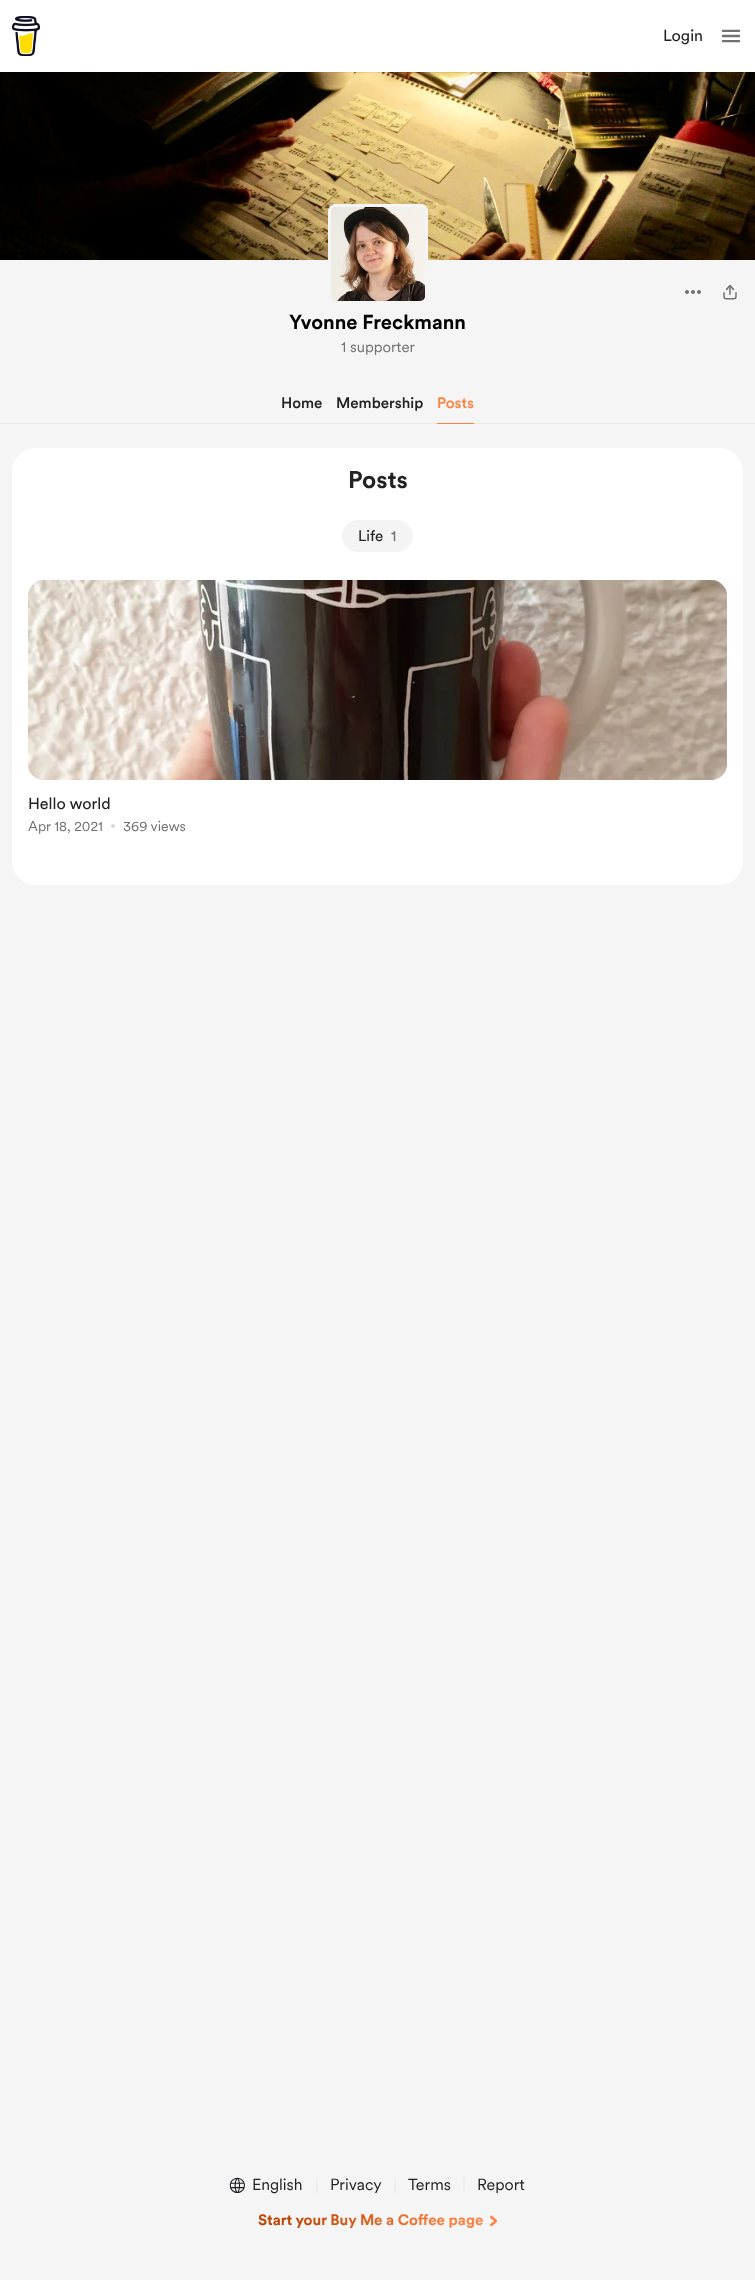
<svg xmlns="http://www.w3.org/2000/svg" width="755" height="2282">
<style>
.a{font:16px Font;fill:#222}
.b{font:bold 20px Font;fill:#000}
.c{font:15px 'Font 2';fill:#717171}
.d{font:500 15px Font;fill:#222}
.e{font:500 15px Font;fill:#ff813f}
.f{font:bold 24px Font;fill:#222}
.g{font:15px Font;fill:#222}
.h{font:15px Font;fill:#717171}
.i{font:14px 'Font 2';fill:#717171}
.j{font:16px 'Font 2';fill:#222}
.k{font:bold 15px Font;fill:url(#g1)}
</style>
<defs>
<clipPath id="clip1"><path d="M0 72h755v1H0z"/></clipPath>
<linearGradient id="g1" gradientUnits="userSpaceOnUse" x1="272" y1="2175" x2="483" y2="2265"><stop offset="0.14" stop-color="#bf4300"/><stop offset="0.82" stop-color="#ff813f"/></linearGradient>
</defs>
<rect width="100%" height="100%" fill="#fff"/>
<image href="3.png" x="0" y="72" width="755" height="188"/>
<g clip-path="url(#clip1)">
<path fill="#0000000f" filter="blur(0.5px)" d="M0 1h755v72H0z"/>
</g>
<image href="1.png" x="12" y="16" width="28" height="40"/>
<image href="2.png" x="721" y="29" width="20" height="14"/>
<path fill="#f5f5f5" d="M0 260h755v2020H0z"/>
<image href="4.png" x="685" y="290" width="16" height="4"/>
<image href="5.png" x="723" y="285" width="14" height="15"/>
<image href="6.png" x="328" y="204" width="100" height="100"/>
<rect fill="none" stroke="#f5f5f5" stroke-width="3" x="329.5" y="205.5" width="97" height="97" rx="6.5"/>
<image href="7.png" x="331" y="207" width="94" height="94"/>
<path fill="#e9e9e9" d="M0 423h755v1H0z"/>
<path fill="#ff813f" d="M437 423h37v1H437z"/>
<rect fill="#fff" x="12" y="448" width="731" height="437" rx="24"/>
<rect fill="#f4f4f4" x="342" y="520" width="71" height="32" rx="16"/>
<image href="8.png" x="28" y="580" width="699" height="200"/>
<image href="9.png" x="28" y="580" width="699" height="200"/>
<circle fill="#d9d9d9" cx="113" cy="826" r="2"/>
<image href="10.png" x="229" y="2177" width="16" height="16"/>
<path fill="none" stroke="#e7e7e7" d="M317 2177v16"/>
<path fill="none" stroke="#e7e7e7" d="M395 2177v16"/>
<path fill="none" stroke="#e7e7e7" d="M464 2177v16"/>
<path fill="none" stroke="#ff813f" stroke-width="2.7" d="M490.5 2216.5c7 6 7 3 0 9"/>
<text class="a" x="663" y="41">Login</text>
<text class="b" x="289" y="329">Yvonne Freckmann</text>
<text class="c" x="341" y="352">1 supporter</text>
<text class="d" x="281" y="408">Home</text>
<text class="d" x="336" y="408">Membership</text>
<text class="e" x="437" y="408">Posts</text>
<text class="f" x="348" y="488">Posts</text>
<text class="g" x="358" y="541">Life</text>
<text class="h" x="391" y="541">1</text>
<text class="a" x="28" y="809">Hello world</text>
<text class="i" x="28" y="831">Apr 18, 2021</text>
<text class="i" x="123" y="831">369 views</text>
<text class="j" x="252" y="2190">English</text>
<text class="j" x="330" y="2190">Privacy</text>
<text class="j" x="408" y="2190">Terms</text>
<text class="j" x="477" y="2190">Report</text>
<text class="k" x="258" y="2225">Start your Buy Me a Coffee page</text>
</svg>
